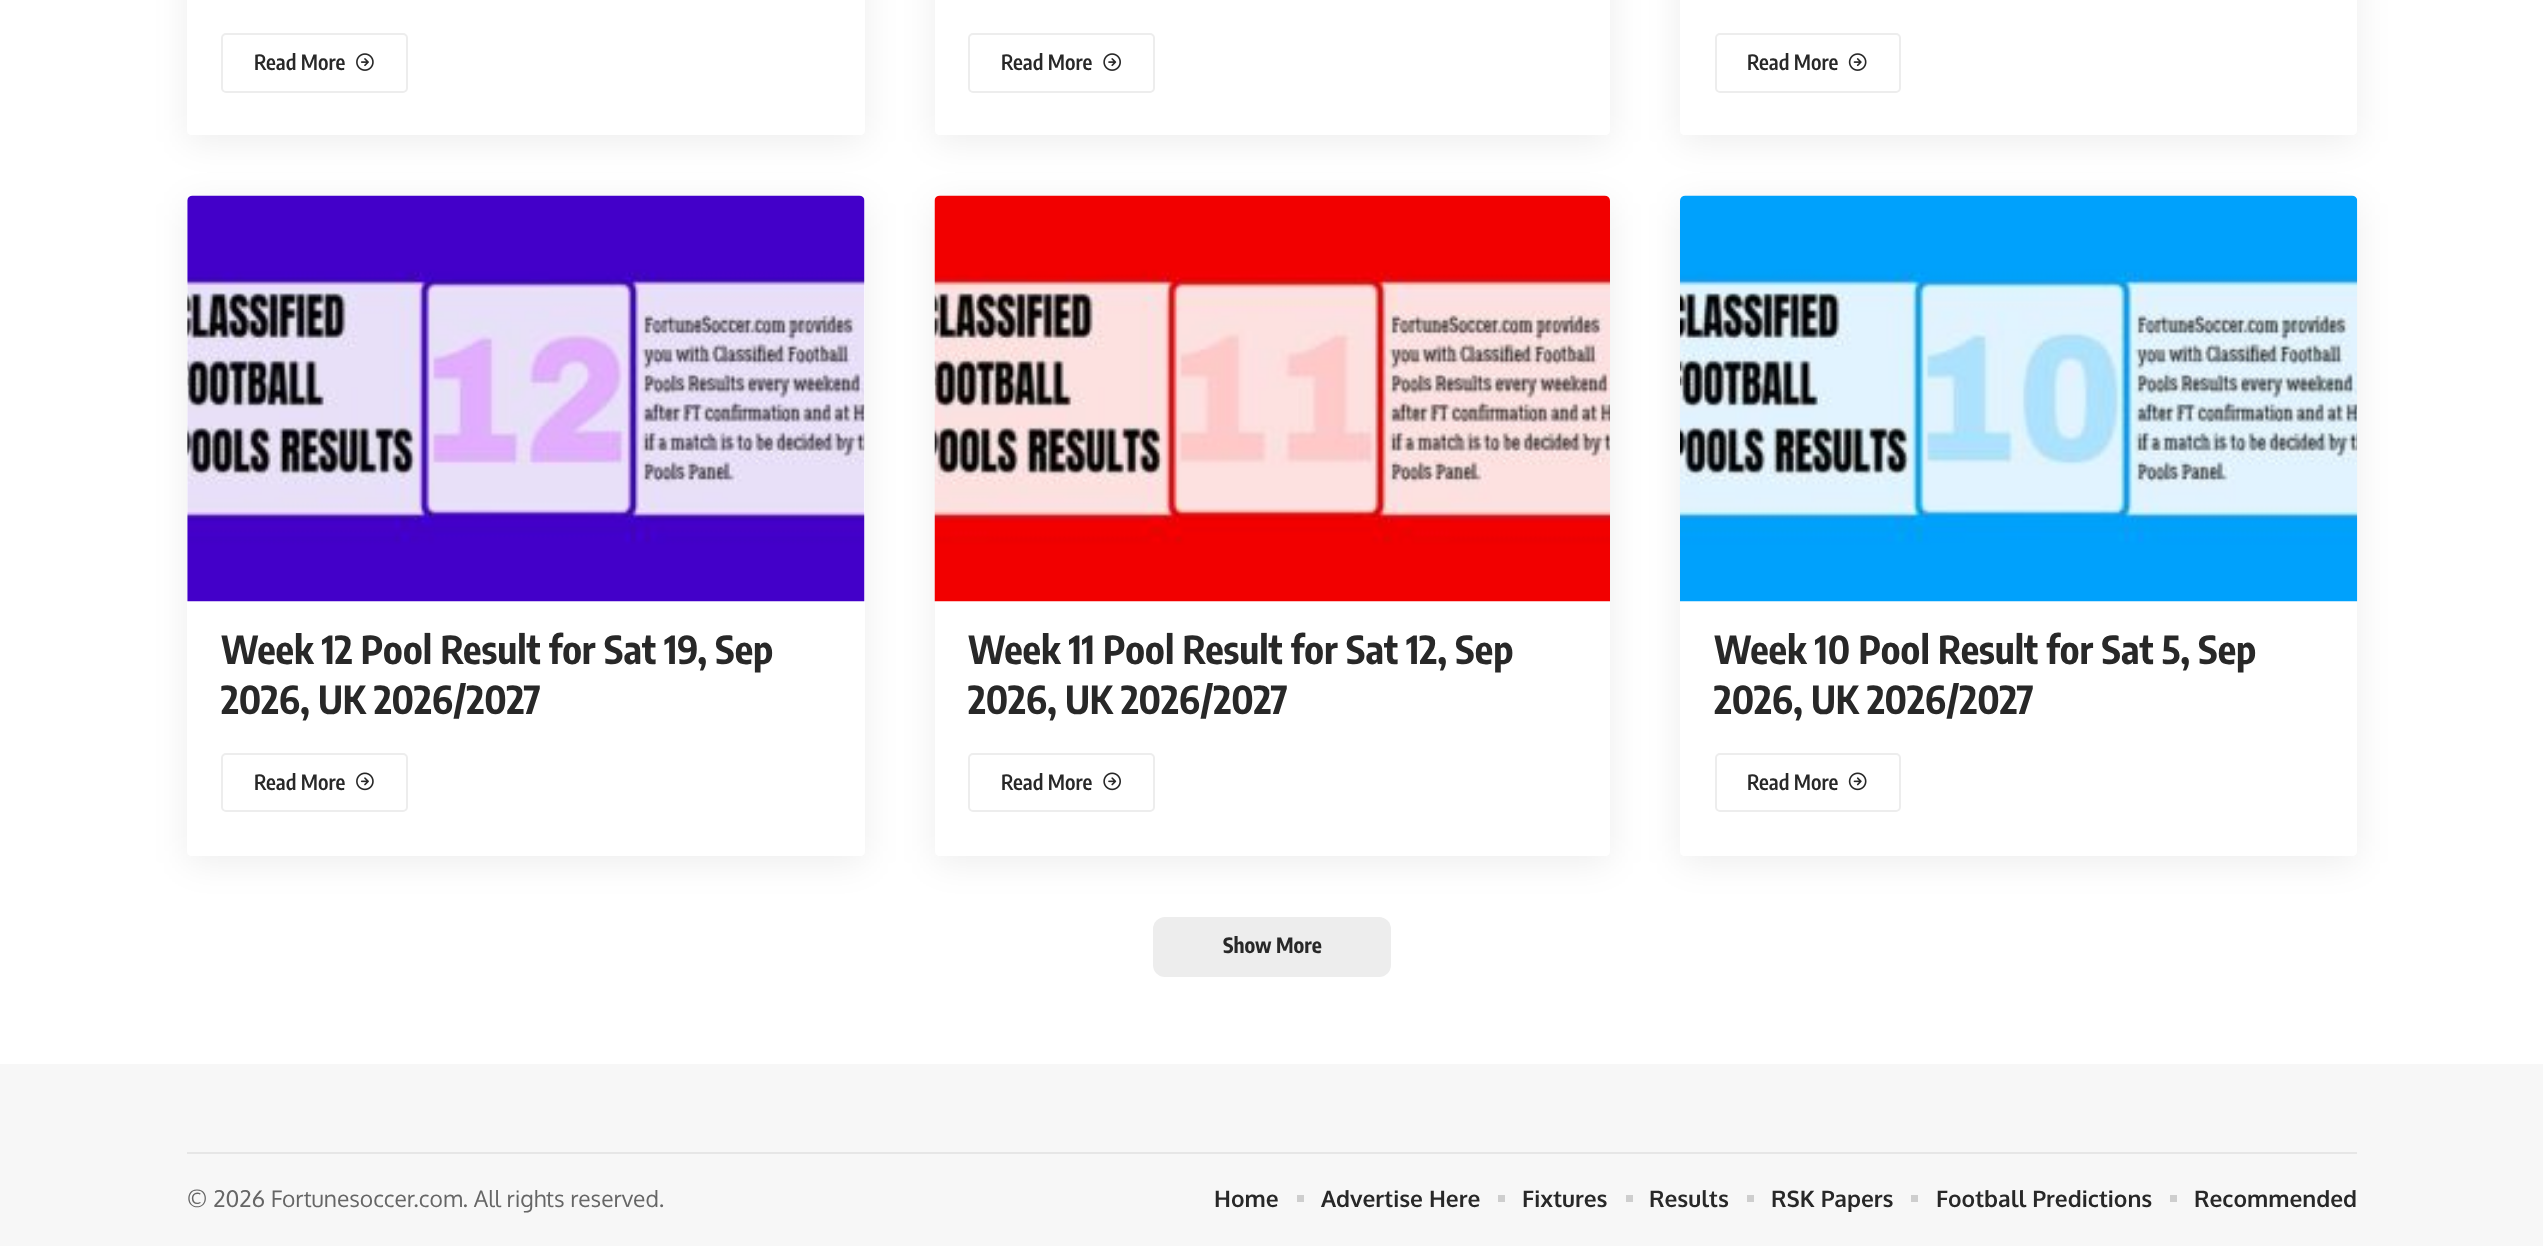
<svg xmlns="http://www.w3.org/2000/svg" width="2543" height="1246">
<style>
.a{font:600 21px Encode Sans Condensed;fill:#282828}
.b{font:bold 38.5px Encode Sans Condensed;fill:#282828}
.c{font:bold 21px Encode Sans Condensed;fill:#282828}
.d{font:22.75px Oxygen;fill:#666}
.e{font:bold 22.75px Oxygen;fill:#282828}
</style>
<defs>
<clipPath id="clip1"><path d="M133 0h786v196h-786zm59-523h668c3 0 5 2 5 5v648c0 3-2 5-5 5h-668c-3 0-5-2-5-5v-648c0-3 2-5 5-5z" clip-rule="evenodd"/></clipPath>
<clipPath id="clip2"><path d="M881 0h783v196h-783zm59-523h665c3 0 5 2 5 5v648c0 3-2 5-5 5h-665c-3 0-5-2-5-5v-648c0-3 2-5 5-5z" clip-rule="evenodd"/></clipPath>
<clipPath id="clip3"><path d="M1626 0h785v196h-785zm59-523h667c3 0 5 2 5 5v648c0 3-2 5-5 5h-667c-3 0-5-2-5-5v-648c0-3 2-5 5-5z" clip-rule="evenodd"/></clipPath>
<clipPath id="clip4"><path d="M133 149h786v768h-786zm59 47h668c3 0 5 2 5 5v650c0 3-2 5-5 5h-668c-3 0-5-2-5-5v-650c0-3 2-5 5-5z" clip-rule="evenodd"/></clipPath>
<clipPath id="clip5"><path d="M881 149h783v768h-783zm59 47h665c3 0 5 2 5 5v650c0 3-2 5-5 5h-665c-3 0-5-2-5-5v-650c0-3 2-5 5-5z" clip-rule="evenodd"/></clipPath>
<clipPath id="clip6"><path d="M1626 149h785v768h-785zm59 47h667c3 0 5 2 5 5v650c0 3-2 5-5 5h-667c-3 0-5-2-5-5v-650c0-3 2-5 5-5z" clip-rule="evenodd"/></clipPath>
</defs>
<rect width="100%" height="100%" fill="#fff"/>
<g clip-path="url(#clip1)">
<rect fill="#00000012" filter="blur(17.5px)" x="187" y="-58" width="678" height="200" rx="5"/>
</g>
<rect fill="none" stroke="#ededed" stroke-width="2" x="222" y="34" width="185" height="58" rx="4"/>
<image href="1.png" x="356" y="53" width="18" height="18"/>
<g clip-path="url(#clip2)">
<rect fill="#00000012" filter="blur(17.5px)" x="935" y="-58" width="675" height="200" rx="5"/>
</g>
<rect fill="none" stroke="#ededed" stroke-width="2" x="969" y="34" width="185" height="58" rx="4"/>
<image href="2.png" x="1103" y="53" width="18" height="18"/>
<g clip-path="url(#clip3)">
<rect fill="#00000012" filter="blur(17.5px)" x="1680" y="-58" width="677" height="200" rx="5"/>
</g>
<rect fill="none" stroke="#ededed" stroke-width="2" x="1716" y="34" width="184" height="58" rx="4"/>
<image href="3.png" x="1848" y="53" width="19" height="18"/>
<g clip-path="url(#clip4)">
<rect fill="#00000012" filter="blur(17.5px)" x="187" y="203" width="678" height="660" rx="5"/>
</g>
<image href="4.png" x="187" y="195" width="678" height="407"/>
<rect fill="none" stroke="#ededed" stroke-width="2" x="222" y="754" width="185" height="57" rx="4"/>
<image href="5.png" x="356" y="772" width="18" height="19"/>
<g clip-path="url(#clip5)">
<rect fill="#00000012" filter="blur(17.5px)" x="935" y="203" width="675" height="660" rx="5"/>
</g>
<image href="6.png" x="934" y="195" width="676" height="407"/>
<rect fill="none" stroke="#ededed" stroke-width="2" x="969" y="754" width="185" height="57" rx="4"/>
<image href="7.png" x="1103" y="772" width="18" height="19"/>
<g clip-path="url(#clip6)">
<rect fill="#00000012" filter="blur(17.5px)" x="1680" y="203" width="677" height="660" rx="5"/>
</g>
<image href="8.png" x="1680" y="195" width="678" height="407"/>
<rect fill="none" stroke="#ededed" stroke-width="2" x="1716" y="754" width="184" height="57" rx="4"/>
<image href="9.png" x="1848" y="772" width="19" height="19"/>
<rect fill="#ededed" x="1153" y="917" width="238" height="60" rx="12"/>
<path fill="#f7f7f7" d="M0 1064h2543v182H0z"/>
<path fill="#e6e6e6" d="M187 1152h2170v2H187z"/>
<path fill="#cecece" d="M1297 1195h7v7H1297z"/>
<path fill="#cecece" d="M1498 1195h7v7H1498z"/>
<path fill="#cecece" d="M1626 1195h7v7H1626z"/>
<path fill="#cecece" d="M1747 1195h7v7H1747z"/>
<path fill="#cecece" d="M1911 1195h7v7H1911z"/>
<path fill="#cecece" d="M2170 1195h7v7H2170z"/>
<text class="a" x="254" y="70">Read More</text>
<text class="a" x="1001" y="70">Read More</text>
<text class="a" x="1747" y="70">Read More</text>
<text class="b" x="221" y="664">Week 12 Pool Result for Sat 19, Sep</text>
<text class="b" x="221" y="714">2026, UK 2026/2027</text>
<text class="a" x="254" y="790">Read More</text>
<text class="b" x="968" y="664">Week 11 Pool Result for Sat 12, Sep</text>
<text class="b" x="968" y="714">2026, UK 2026/2027</text>
<text class="a" x="1001" y="790">Read More</text>
<text class="b" x="1714" y="664">Week 10 Pool Result for Sat 5, Sep</text>
<text class="b" x="1714" y="714">2026, UK 2026/2027</text>
<text class="a" x="1747" y="790">Read More</text>
<text class="c" x="1223" y="953">Show More</text>
<text class="d" x="187" y="1207">© 2026 Fortunesoccer.com. All rights reserved.</text>
<text class="e" x="1214" y="1207">Home</text>
<text class="e" x="1321" y="1207">Advertise Here</text>
<text class="e" x="1522" y="1207">Fixtures</text>
<text class="e" x="1649" y="1207">Results</text>
<text class="e" x="1771" y="1207">RSK Papers</text>
<text class="e" x="1936" y="1207">Football Predictions</text>
<text class="e" x="2194" y="1207">Recommended</text>
</svg>
